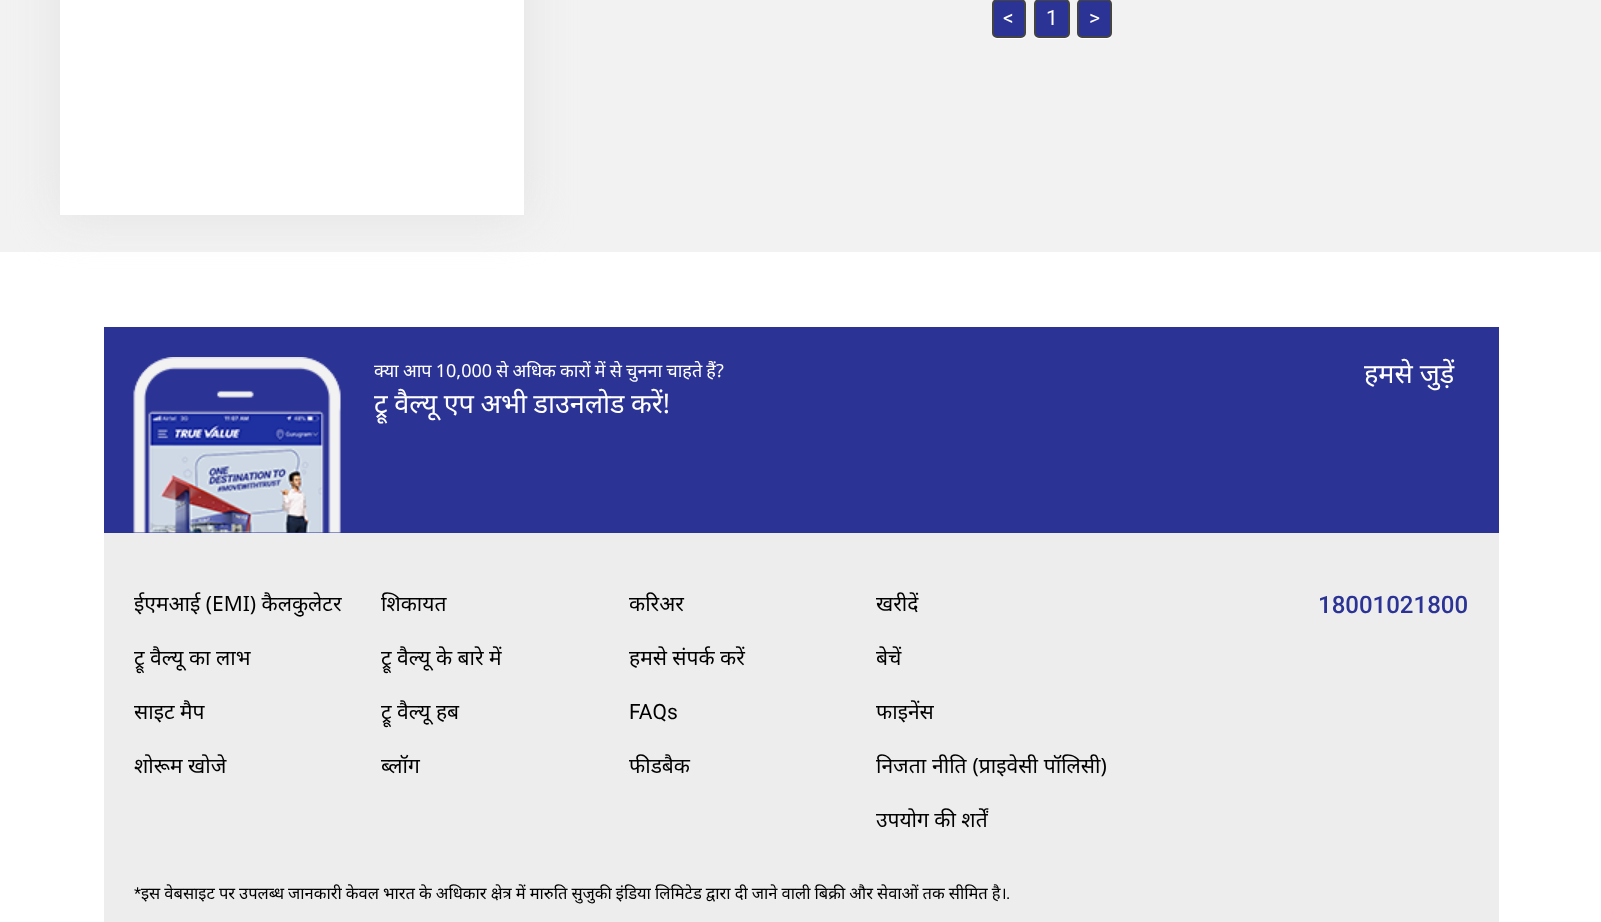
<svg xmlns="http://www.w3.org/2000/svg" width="1601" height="922">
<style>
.a{font:21px Roboto;fill:#fff}
.b{font:18px Noto Sans;fill:#fff}
.c{font:27px Noto Sans;fill:#fff}
.d{font:21px Noto Sans;fill:#000}
.e{font:21px Roboto;fill:#000}
.f{font:500 24px Roboto;fill:#2b3395}
.g{font:16.5px Roboto;fill:#000}
.h{font:16.5px Noto Sans;fill:#000}
</style>
<rect width="100%" height="100%" fill="#fff"/>
<path fill="#f2f2f2" d="M0 0h1601v252H0z"/>
<path fill="#e2e2e2" filter="blur(22.5px)" d="M60 -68h464v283H60z"/>
<path fill="#fff" d="M60 0h464v215H60z"/>
<path fill="#fff" d="M992 35.5c1 2 2.5 3.5 5 3.5h24c3 0 5-2 5-5v-1c0 2.5-2 4.5-4.5 4.5h-25.5c-1.5 0-3-1-4-2z"/>
<rect fill="#2b3395" stroke="#444" stroke-width="2" x="993" y="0" width="32" height="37" rx="4"/>
<path fill="#fff" d="M1034 35.5c1 2 2.5 3.5 5 3.5h26c3 0 5-2 5-5v-29l-.5-2v25c0 9 0 9.5-9 9.5h-18c-3 0-6.5 .5-8.5-2z"/>
<rect fill="#2b3395" stroke="#444" stroke-width="2" x="1035" y="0" width="34" height="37" rx="4"/>
<path fill="#fff" d="M1077 33v1c0 3 2 5 5 5h25c3 0 5-2 5-5v-29l-.5-2v31l-1.5 2c-1.5 2-5 1.5-7 1.5h-17c-3.5 0-9 .5-9-4.5z"/>
<rect fill="#2b3395" stroke="#444" stroke-width="2" x="1078" y="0" width="33" height="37" rx="4"/>
<path fill="#2b3395" d="M104 327h1395v206H104z"/>
<image href="1.png" x="133" y="357" width="208" height="176"/>
<path fill="#ededed" d="M104 533h1395v389H104z"/>
<text class="a" x="1003" y="25">&lt;</text>
<text class="a" x="1046" y="25">1</text>
<text class="a" x="1089" y="25">&gt;</text>
<text class="b" x="374" y="377" word-spacing="-0.5">क्या आप 10,000 से अधिक कारों में से चुनना चाहते हैं?</text>
<text class="c" x="374" y="413" word-spacing="-0.5">ट्रू वैल्यू एप अभी डाउनलोड करें!</text>
<text class="c" x="1364" y="383">हमसे जुड़ें</text>
<text class="d" x="134" y="611">ईएमआई (EMI) कैलकुलेटर</text>
<text class="d" x="134" y="665">ट्रू वैल्यू का लाभ</text>
<text class="d" x="134" y="719">साइट मैप</text>
<text class="d" x="134" y="773">शोरूम खोजे</text>
<text class="d" x="381" y="611">शिकायत</text>
<text class="d" x="381" y="665">ट्रू वैल्यू के बारे में</text>
<text class="d" x="381" y="719">ट्रू वैल्यू हब</text>
<text class="d" x="381" y="773">ब्लॉग</text>
<text class="d" x="629" y="611">करिअर</text>
<text class="d" x="629" y="665">हमसे संपर्क करें</text>
<text class="e" x="629" y="719">FAQs</text>
<text class="d" x="629" y="773">फीडबैक</text>
<text class="d" x="876" y="611">खरीदें</text>
<text class="d" x="876" y="665">बेचें</text>
<text class="d" x="876" y="719">फाइनेंस</text>
<text class="d" x="876" y="773" word-spacing="0.5">निजता नीति (प्राइवेसी पॉलिसी)</text>
<text class="d" x="876" y="827">उपयोग की शर्तें</text>
<text class="f" x="1318" y="613">18001021800</text>
<text class="g" x="134" y="899">*</text>
<text class="h" x="141" y="899" word-spacing="-0.2">इस वेबसाइट पर उपलब्ध जानकारी केवल भारत के अधिकार क्षेत्र में मारुति सुजुकी इंडिया लिमिटेड द्वारा दी जाने वाली बिक्री और सेवाओं तक सीमित है।</text>
<text class="g" x="1006" y="899">.</text>
</svg>
